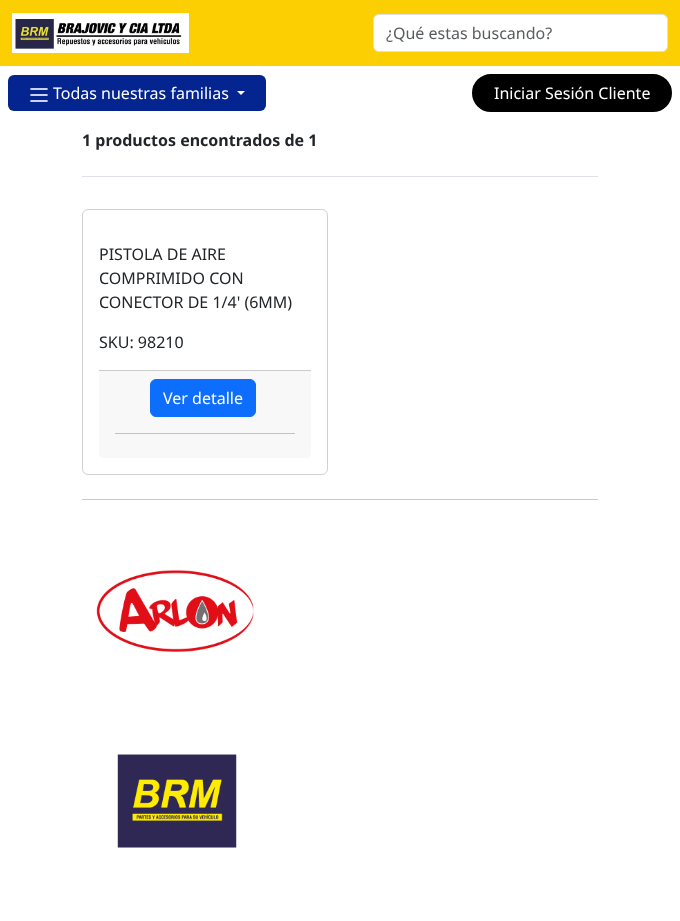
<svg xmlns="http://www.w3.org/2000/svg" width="680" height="921">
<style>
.a{font:16px Noto Sans;fill:#595c5f}
.b{font:16px Noto Sans;fill:#fff}
.c{font:bold 16px Noto Sans;fill:#212529}
.d{font:16px Noto Sans;fill:#212529}
</style>
<rect width="100%" height="100%" fill="#fff"/>
<path fill="#fccf03" d="M0 0h680v66H0z"/>
<image href="1.png" x="12" y="13" width="177" height="40"/>
<rect fill="#fff" stroke="#dee2e6" x="373.5" y="14.5" width="294" height="37" rx="5.5"/>
<rect fill="#04258f" x="8" y="75" width="258" height="36" rx="6"/>
<image href="2.png" x="30" y="88" width="18" height="14"/>
<path fill="#fff" d="M237 91h8l-4 4z"/>
<rect fill="#000" stroke="#000" stroke-width="2" x="473" y="75" width="198" height="36" rx="18"/>
<path fill="#dee2e6" d="M82 176h516v1H82z"/>
<rect fill="none" stroke="#d2d2d2" x="82.5" y="209.5" width="245" height="265" rx="5.5"/>
<path fill="#f8f8f9" d="M99 370h212v83c0 3-2 5-5 5h-202c-3 0-5-2-5-5z"/>
<path fill="#cccccd" d="M99 370h212v1H99z"/>
<rect fill="#0d6efd" stroke="#0d6efd" x="150.5" y="379.5" width="105" height="37" rx="5.5"/>
<path fill="#c2c3c5" d="M115 433h180v1H115z"/>
<path fill="#c8c9ca" d="M82 499h516v1H82z"/>
<image href="3.png" x="96" y="570" width="158" height="82"/>
<image href="4.png" x="117" y="754" width="120" height="94"/>
<text class="a" x="386" y="39">¿Qué estas buscando?</text>
<text class="b" x="53" y="99">Todas nuestras familias</text>
<text class="b" x="494" y="99">Iniciar Sesión Cliente</text>
<text class="c" x="82" y="146">1 productos encontrados de 1</text>
<text class="d" x="99" y="260">PISTOLA DE AIRE</text>
<text class="d" x="99" y="284">COMPRIMIDO CON</text>
<text class="d" x="99" y="308">CONECTOR DE 1/4' (6MM)</text>
<text class="d" x="99" y="348">SKU: 98210</text>
<text class="b" x="163" y="404">Ver detalle</text>
</svg>
